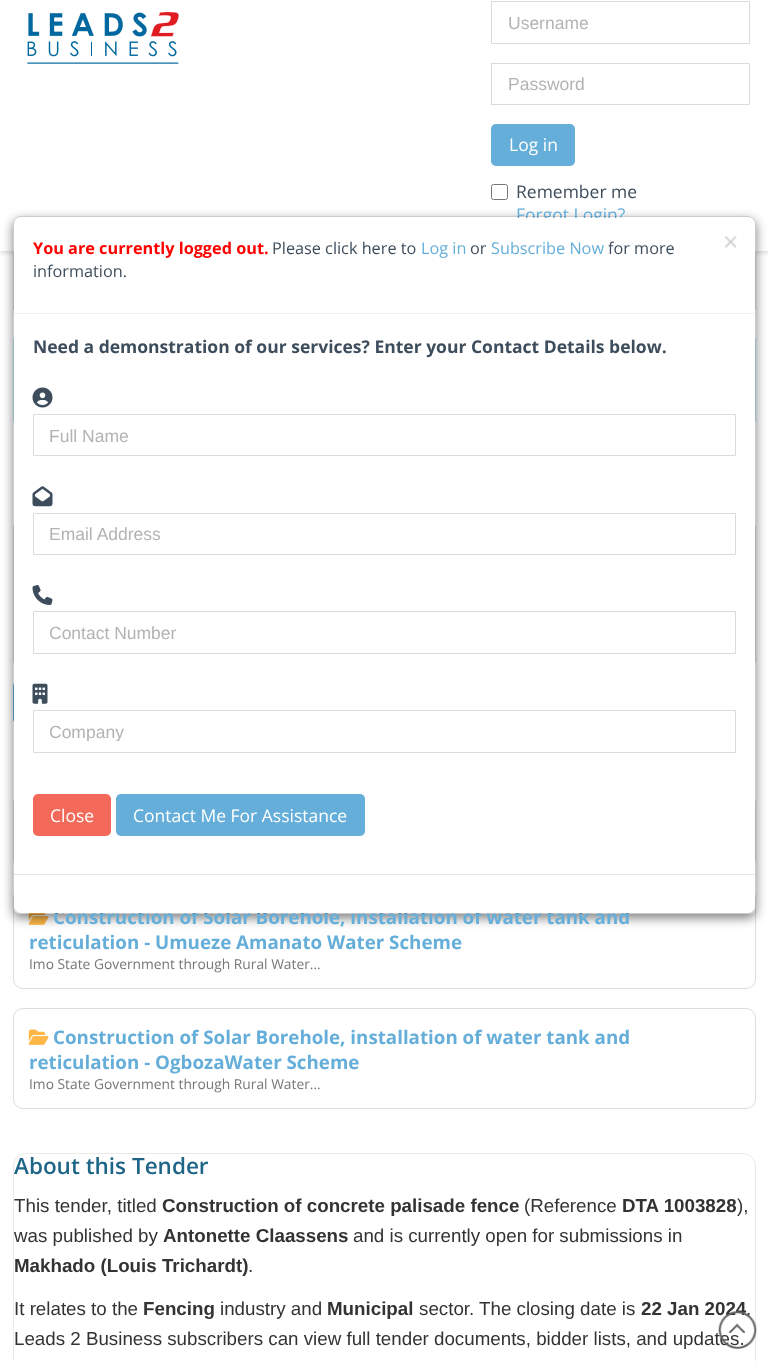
<svg xmlns="http://www.w3.org/2000/svg" width="768" height="1361">
<style>
.a{font:17.5px Liberation Sans;fill:#b3b3b3}
.b{font:17.5px Open Sans;fill:#fff}
.c{font:17.5px Open Sans;fill:#3e4d5c}
.d{font:17.5px Open Sans;fill:#64aed9}
.e{font:bold 18.75px Open Sans;fill:#64aed9}
.f{font:bold 17.5px Open Sans;fill:#3e4d5c}
.g{font:16.25px Open Sans;fill:#3e4d5c}
.h{font:16.25px Open Sans;fill:#64aed9}
.i{font:bold 16.25px Open Sans;fill:#f00}
.j{font:13.8px Open Sans;fill:#777}
.k{font:600 22.5px Open Sans;fill:#1e6587}
.l{font:18.75px Liberation Sans;fill:#333}
.m{font:bold 18.75px Liberation Sans;fill:#333}
</style>
<defs>
<clipPath id="clip1"><path d="M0 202h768v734h-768zm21 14h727c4.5 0 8 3.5 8 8v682c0 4.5-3.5 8-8 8h-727c-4.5 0-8-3.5-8-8v-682c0-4.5 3.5-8 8-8z" clip-rule="evenodd"/></clipPath>
<clipPath id="clip2"><path d="M49 721h671v20H49z"/></clipPath>
</defs>
<rect width="100%" height="100%" fill="#fff"/>
<path fill="#ddd" d="M755 251h1v59H755z"/>
<path fill="#ddd" d="M13 251h1v59H13z"/>
<path fill="#ddd" filter="blur(2px)" d="M0 1h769v252H0z"/>
<path fill="#fff" d="M0 0h768v251H0z"/>
<image href="1.png" x="27" y="11" width="152" height="53"/>
<path fill="none" stroke="#dbdbdb" d="M491.5 1.5h258v42H491.5z"/>
<path fill="none" stroke="#dbdbdb" d="M491.5 63.5h258v41H491.5z"/>
<rect fill="#64aed9" x="491" y="124" width="84" height="42" rx="5"/>
<rect fill="none" stroke="#767676" x="491.5" y="184.5" width="16" height="15" rx="2"/>
<rect fill="none" stroke="#bce8f1" x="13.5" y="335.5" width="742" height="89" rx="4.5"/>
<path fill="none" stroke="#dbdbdb" d="M13.5 525.5h742v137H13.5z"/>
<rect fill="#64aed9" x="13" y="681" width="160" height="43" rx="5"/>
<rect fill="none" stroke="#ddd" x="13.5" y="793.5" width="742" height="75" rx="9.5"/>
<rect fill="none" stroke="#ddd" x="13.5" y="888.5" width="742" height="100" rx="9.5"/>
<image href="7.png" x="28" y="913" width="21" height="12"/>
<g clip-path="url(#clip1)">
<rect fill="#00000080" filter="blur(5.5px)" x="13" y="220" width="743" height="698" rx="8"/>
</g>
<rect fill="none" stroke="#ddd" x="13.5" y="1008.5" width="742" height="100" rx="9.5"/>
<image href="8.png" x="28" y="1029" width="21" height="16"/>
<rect fill="none" stroke="#eaeaea" x="13.5" y="1153.5" width="742" height="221" rx="12.5"/>
<text class="a" x="508" y="29">Username</text>
<text class="a" x="508" y="90">Password</text>
<text class="b" x="509" y="151">Log in</text>
<text class="c" x="516" y="198">Remember me</text>
<text class="d" x="516" y="221">Forgot Login?</text>
<text class="e" x="53" y="924">Construction of Solar Borehole, installation of water tank and</text>
<rect fill="#fff" x="14" y="218" width="741" height="695" rx="6"/>
<rect fill="none" stroke="#00000033" x="13.5" y="216.5" width="742" height="697" rx="7.5"/>
<rect fill="#64aed9" x="116" y="794" width="249" height="42" rx="5"/>
<text class="b" x="133" y="822">Contact Me For Assistance</text>
<rect fill="#f36a5a" x="33" y="794" width="78" height="42" rx="5"/>
<text class="b" x="50" y="822">Close</text>
<path fill="none" stroke="#dbdbdb" d="M33.5 710.5h702v42H33.5z"/>
<g clip-path="url(#clip2)">
<text class="a" x="49" y="738">Company</text>
</g>
<image href="6.png" x="32" y="683" width="16" height="21"/>
<path fill="none" stroke="#dbdbdb" d="M33.5 611.5h702v42H33.5z"/>
<text class="a" x="49" y="639">Contact Number</text>
<image href="5.png" x="32" y="585" width="21" height="20"/>
<path fill="none" stroke="#dbdbdb" d="M33.5 513.5h702v41H33.5z"/>
<text class="a" x="49" y="540">Email Address</text>
<image href="4.png" x="32" y="486" width="21" height="21"/>
<path fill="none" stroke="#dbdbdb" d="M33.5 414.5h702v41H33.5z"/>
<text class="a" x="49" y="442">Full Name</text>
<image href="3.png" x="32" y="387" width="21" height="21"/>
<text class="f" x="33" y="353">Need a demonstration of our services? Enter your Contact Details below.</text>
<image href="2.png" x="725" y="236" width="12" height="12"/>
<text class="g" x="33" y="277">information.</text>
<text class="g" x="608" y="254">for more</text>
<text class="h" x="491" y="254">Subscribe Now</text>
<text class="g" x="470" y="254">or</text>
<text class="h" x="421" y="254">Log in</text>
<text class="g" x="272" y="254">Please click here to</text>
<text class="i" x="33" y="254">You are currently logged out.</text>
<path fill="#e5e5e5" d="M14 874h741v1H14z"/>
<path fill="#efefef" d="M14 313h741v1H14z"/>
<text class="e" x="29" y="949">reticulation - Umueze Amanato Water Scheme</text>
<text class="j" x="29" y="969">Imo State Government through Rural Water...</text>
<text class="e" x="53" y="1044">Construction of Solar Borehole, installation of water tank and</text>
<text class="e" x="29" y="1069">reticulation - OgbozaWater Scheme</text>
<text class="j" x="29" y="1089">Imo State Government through Rural Water...</text>
<text class="k" x="14" y="1174">About this Tender</text>
<text class="l" x="14" y="1212">This tender, titled</text>
<text class="m" x="162" y="1212">Construction of concrete palisade fence</text>
<text class="l" x="524" y="1212">(Reference</text>
<text class="m" x="622" y="1212">DTA 1003828</text>
<text class="l" x="737" y="1212">),</text>
<text class="l" x="14" y="1242">was published by</text>
<text class="m" x="163" y="1242">Antonette Claassens</text>
<text class="l" x="353" y="1242">and is currently open for submissions in</text>
<text class="m" x="14" y="1272">Makhado (Louis Trichardt)</text>
<text class="l" x="248" y="1272">.</text>
<text class="l" x="14" y="1315">It relates to the</text>
<text class="m" x="143" y="1315">Fencing</text>
<text class="l" x="220" y="1315">industry and</text>
<text class="m" x="327" y="1315">Municipal</text>
<text class="l" x="419" y="1315">sector.</text>
<text class="l" x="479" y="1315">The closing date is</text>
<text class="m" x="641" y="1315">22 Jan 2024</text>
<text class="l" x="746" y="1315">.</text>
<text class="l" x="14" y="1345">Leads 2 Business subscribers can view full tender documents, bidder lists, and updates.</text>
<image href="9.png" x="718" y="1311" width="39" height="38"/>
</svg>
